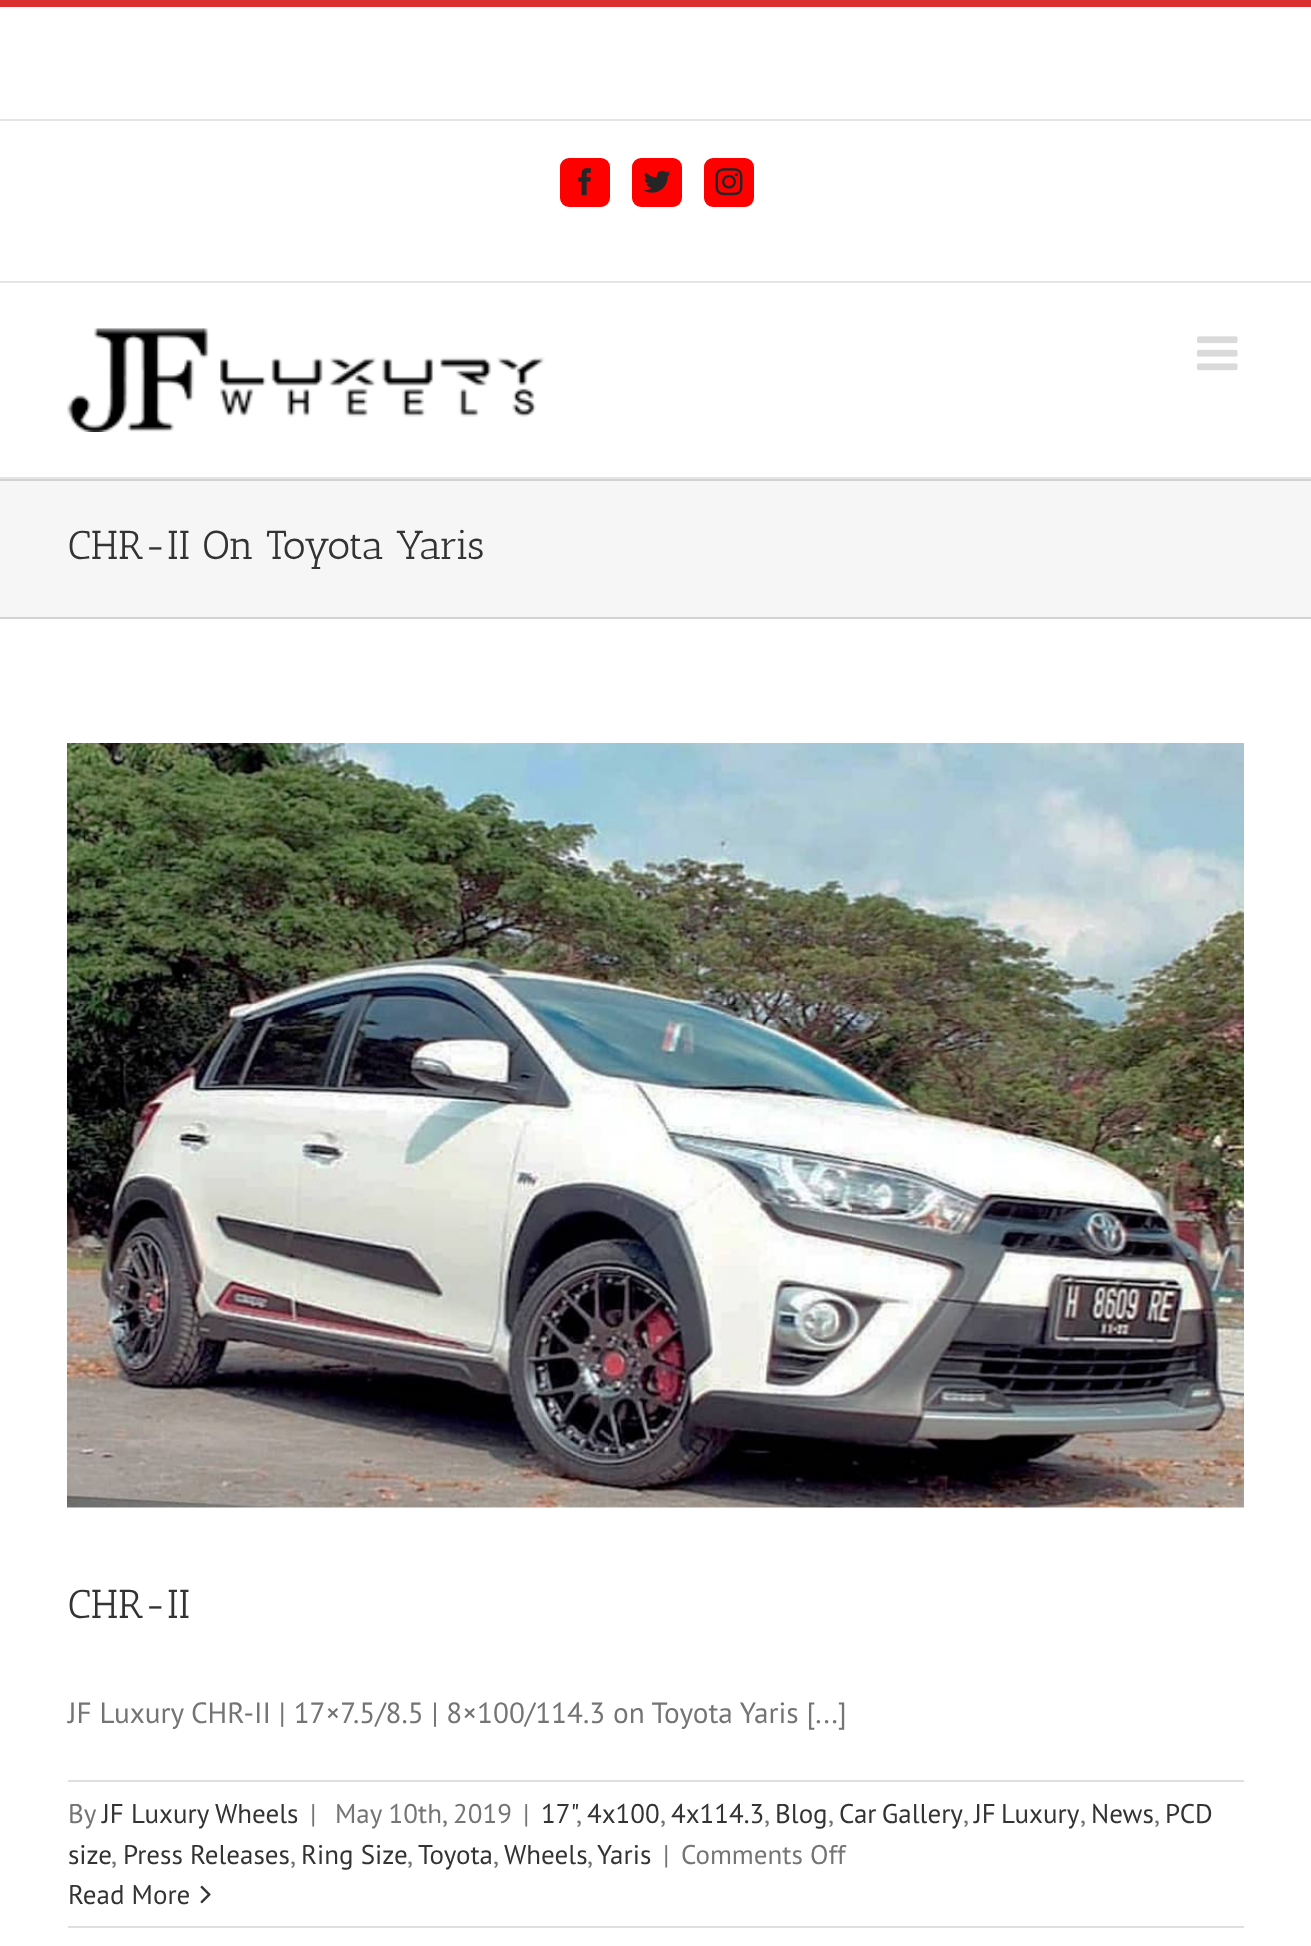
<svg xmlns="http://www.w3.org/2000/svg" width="1311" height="1946">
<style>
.a{font:40.5px Antic Slab;fill:#333}
.b{font:29.25px PT Sans;fill:#747474}
.c{font:27px PT Sans;fill:#747474}
.d{font:27px PT Sans;fill:#333}
</style>
<rect width="100%" height="100%" fill="#fff"/>
<path fill="#db3030" d="M0 0h1311v7H0z"/>
<path fill="#e5e5e5" d="M0 281h1311v2H0z"/>
<path fill="#e5e5e5" d="M0 119h1311v2H0z"/>
<rect fill="#fe0000" stroke="#fe0000" stroke-width="2" x="561" y="159" width="48" height="47" rx="8"/>
<image href="1.png" x="578" y="168" width="13" height="28"/>
<rect fill="#fe0000" stroke="#fe0000" stroke-width="2" x="633" y="159" width="48" height="47" rx="8"/>
<image href="2.png" x="643" y="170" width="28" height="23"/>
<rect fill="#fe0000" stroke="#fe0000" stroke-width="2" x="705" y="159" width="48" height="47" rx="8"/>
<image href="3.png" x="715" y="168" width="28" height="28"/>
<path fill="#e5e5e5" d="M0 477h1311v2H0z"/>
<image href="4.png" x="67" y="328" width="478" height="104"/>
<image href="5.png" x="1197" y="336" width="41" height="35"/>
<path fill="#f6f6f6" d="M0 481h1311v136H0z"/>
<path fill="#d2d3d4" d="M0 479h1311v2H0z"/>
<path fill="#d2d3d4" d="M0 617h1311v2H0z"/>
<image href="6.png" x="67" y="743" width="1177" height="765"/>
<path fill="#e0dede" d="M68 1780h1176v2H68z"/>
<path fill="#e0dede" d="M68 1926h1176v2H68z"/>
<image href="7.png" x="200" y="1885" width="11" height="19"/>
<text class="a" x="68" y="559">CHR-II On Toyota Yaris</text>
<text class="a" x="68" y="1618">CHR-II</text>
<text class="b" x="68" y="1723">JF Luxury CHR-II | 17×7.5/8.5 | 8×100/114.3 on Toyota Yaris [...]</text>
<text class="c" x="68" y="1823">By</text>
<text class="d" x="102" y="1823">JF Luxury Wheels</text>
<text class="c" x="310" y="1823">|</text>
<text class="c" x="335" y="1823">May 10th, 2019</text>
<text class="c" x="523" y="1823">|</text>
<text class="d" x="541" y="1823">17"</text>
<text class="c" x="576" y="1823">,</text>
<text class="d" x="587" y="1823">4x100</text>
<text class="c" x="660" y="1823">,</text>
<text class="d" x="671" y="1823">4x114.3</text>
<text class="c" x="764" y="1823">,</text>
<text class="d" x="775" y="1823">Blog</text>
<text class="c" x="828" y="1823">,</text>
<text class="d" x="839" y="1823" word-spacing="-2">Car Gallery</text>
<text class="c" x="963" y="1823">,</text>
<text class="d" x="974" y="1823" word-spacing="-2">JF Luxury</text>
<text class="c" x="1080" y="1823">,</text>
<text class="d" x="1091" y="1823">News</text>
<text class="c" x="1154" y="1823">,</text>
<text class="d" x="1165" y="1823">PCD</text>
<text class="d" x="68" y="1864">size</text>
<text class="c" x="111" y="1864">,</text>
<text class="d" x="123" y="1864">Press Releases</text>
<text class="c" x="290" y="1864">,</text>
<text class="d" x="301" y="1864">Ring Size</text>
<text class="c" x="407" y="1864">,</text>
<text class="d" x="418" y="1864">Toyota</text>
<text class="c" x="493" y="1864">,</text>
<text class="d" x="504" y="1864">Wheels</text>
<text class="c" x="587" y="1864">,</text>
<text class="d" x="597" y="1864">Yaris</text>
<text class="c" x="663" y="1864">|</text>
<text class="c" x="681" y="1864">Comments Off</text>
<text class="d" x="68" y="1904">Read More</text>
</svg>
